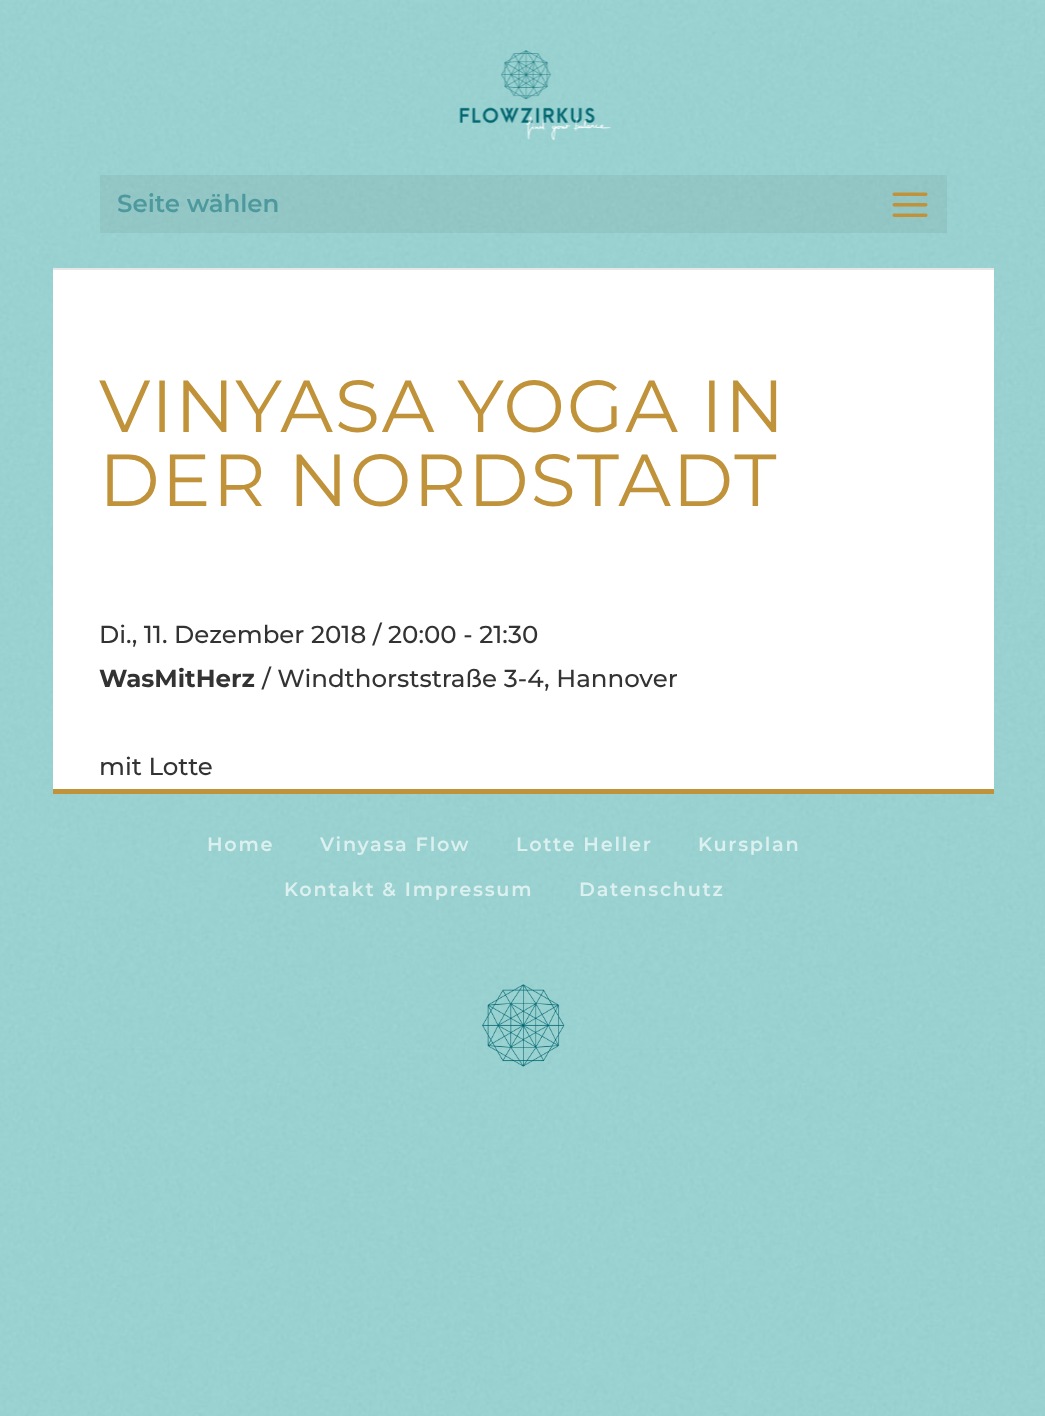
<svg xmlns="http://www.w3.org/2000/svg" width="1045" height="1416">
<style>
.a{font:600 24.5px Montserrat;fill:#4e999e}
.b{font:73.5px Montserrat;letter-spacing:1.75px;fill:#c0923a}
.c{font:500 24.5px Montserrat;fill:#333}
.d{font:bold 24.5px Montserrat;fill:#333}
.e{font:600 19.25px Montserrat;letter-spacing:1.75px;fill:#dcf0ef}
</style>
<rect width="100%" height="100%" fill="#fff"/>
<image href="1.png" x="0" y="0" width="1045" height="1416"/>
<path fill="#e6e6e6" d="M53 268h941v2H53z"/>
<image href="2.png" x="459" y="50" width="152" height="90"/>
<path fill="#0000000d" d="M100 175h847v58H100z"/>
<image href="3.png" x="892" y="192" width="36" height="25"/>
<path fill="#fff" d="M53 270h941v519H53z"/>
<path fill="#c0923a" d="M53 789h941v5H53z"/>
<image href="4.png" x="482" y="984" width="83" height="83"/>
<text class="a" x="117" y="212">Seite wählen</text>
<text class="b" x="99" y="432">VINYASA YOGA IN</text>
<text class="b" x="99" y="506">DER NORDSTADT</text>
<text class="c" x="99" y="643">Di., 11. Dezember 2018 / 20:00 - 21:30</text>
<text class="d" x="99" y="687">WasMitHerz</text>
<text class="c" x="262" y="687">/ Windthorststraße 3-4, Hannover</text>
<text class="c" x="99" y="775">mit Lotte</text>
<text class="e" x="207" y="851">Home</text>
<text class="e" x="320" y="851">Vinyasa Flow</text>
<text class="e" x="516" y="851">Lotte Heller</text>
<text class="e" x="698" y="851">Kursplan</text>
<text class="e" x="284" y="896">Kontakt &amp; Impressum</text>
<text class="e" x="579" y="896">Datenschutz</text>
</svg>
